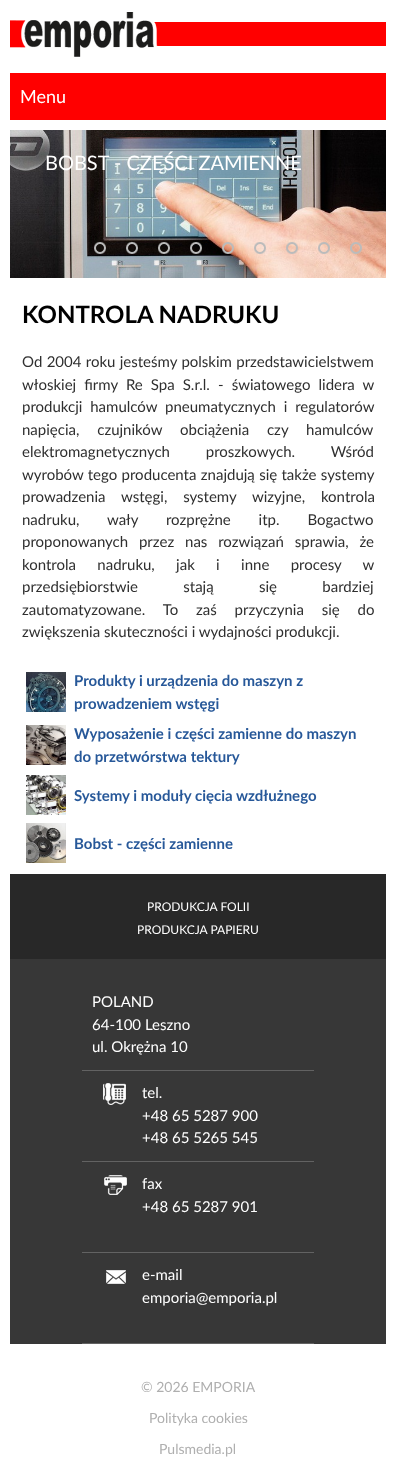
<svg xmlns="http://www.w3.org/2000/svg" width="396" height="1459">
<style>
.a{font:18px Lato;fill:#fff}
.b{font:20px Lato;fill:#fff}
.c{font:bold 24px Lato;fill:#000}
.d{font:15px Lato;fill:#2f2f2f}
.e{font:bold 15px Lato;fill:#275899}
.f{font:12px Lato;fill:#fff}
.g{font:15px Lato;fill:#fff}
.h{font:14px Lato;fill:#afafaf}
</style>
<rect width="100%" height="100%" fill="#fff"/>
<image href="1.png" x="10" y="12" width="376" height="45"/>
<path fill="#f00" d="M10 73h376v47H10z"/>
<image href="2.png" x="10" y="130" width="376" height="148"/>
<image href="3.png" x="94" y="242" width="12" height="12"/>
<image href="4.png" x="126" y="242" width="12" height="12"/>
<image href="5.png" x="158" y="242" width="12" height="12"/>
<image href="6.png" x="190" y="242" width="12" height="12"/>
<image href="7.png" x="222" y="242" width="12" height="12"/>
<image href="8.png" x="254" y="242" width="12" height="12"/>
<image href="9.png" x="286" y="242" width="12" height="12"/>
<image href="10.png" x="318" y="242" width="12" height="12"/>
<image href="11.png" x="350" y="242" width="12" height="12"/>
<image href="12.png" x="26" y="672" width="40" height="40"/>
<image href="13.png" x="26" y="725" width="40" height="40"/>
<image href="14.png" x="26" y="775" width="40" height="40"/>
<image href="15.png" x="26" y="823" width="40" height="40"/>
<path fill="#282828" d="M10 874h376v85H10z"/>
<path fill="#373737" d="M10 959h376v385H10z"/>
<path fill="#626262" d="M82 1070h232v1H82z"/>
<image href="16.png" x="103" y="1083" width="23" height="22"/>
<path fill="#626262" d="M82 1161h232v1H82z"/>
<image href="17.png" x="104" y="1175" width="23" height="20"/>
<path fill="#626262" d="M82 1252h232v1H82z"/>
<image href="18.png" x="106" y="1270" width="20" height="14"/>
<path fill="#626262" d="M82 1343h232v1H82z"/>
<text class="a" x="20" y="103">Menu</text>
<text class="b" x="45" y="170">BOBST - CZĘŚCI ZAMIENNE</text>
<text class="c" x="22" y="323">KONTROLA NADRUKU</text>
<text class="d" x="22" y="367" word-spacing="0.5">Od 2004 roku jesteśmy polskim przedstawicielstwem</text>
<text class="d" x="22" y="390" word-spacing="4.25">włoskiej firmy Re Spa S.r.l. - światowego lidera w</text>
<text class="d" x="22" y="412" word-spacing="4">produkcji hamulców pneumatycznych i regulatorów</text>
<text class="d" x="22" y="435" word-spacing="14">napięcia, czujników obciążenia czy hamulców</text>
<text class="d" x="22" y="457" word-spacing="32">elektromagnetycznych proszkowych. Wśród</text>
<text class="d" x="22" y="480" word-spacing="0.5">wyrobów tego producenta znajdują się także systemy</text>
<text class="d" x="22" y="502" word-spacing="12">prowadzenia wstęgi, systemy wizyjne, kontrola</text>
<text class="d" x="22" y="525" word-spacing="24">nadruku, wały rozprężne itp. Bogactwo</text>
<text class="d" x="22" y="547" word-spacing="7">proponowanych przez nas rozwiązań sprawia, że</text>
<text class="d" x="22" y="570" word-spacing="17.5">kontrola nadruku, jak i inne procesy w</text>
<text class="d" x="22" y="592" word-spacing="41.5">przedsiębiorstwie stają się bardziej</text>
<text class="d" x="22" y="615" word-spacing="14">zautomatyzowane. To zaś przyczynia się do</text>
<text class="d" x="22" y="637">zwiększenia skuteczności i wydajności produkcji.</text>
<text class="e" x="74" y="686">Produkty i urządzenia do maszyn z</text>
<text class="e" x="74" y="709">prowadzeniem wstęgi</text>
<text class="e" x="74" y="739">Wyposażenie i części zamienne do maszyn</text>
<text class="e" x="74" y="762">do przetwórstwa tektury</text>
<text class="e" x="74" y="801">Systemy i moduły cięcia wzdłużnego</text>
<text class="e" x="74" y="849">Bobst - części zamienne</text>
<text class="f" x="147" y="911">PRODUKCJA FOLII</text>
<text class="f" x="137" y="934">PRODUKCJA PAPIERU</text>
<text class="g" x="92" y="1007">POLAND</text>
<text class="g" x="92" y="1030">64-100 Leszno</text>
<text class="g" x="92" y="1052">ul. Okrężna 10</text>
<text class="g" x="142" y="1098">tel.</text>
<text class="g" x="142" y="1121">+48 65 5287 900</text>
<text class="g" x="142" y="1143">+48 65 5265 545</text>
<text class="g" x="142" y="1189">fax</text>
<text class="g" x="142" y="1212">+48 65 5287 901</text>
<text class="g" x="142" y="1280">e-mail</text>
<text class="g" x="142" y="1303">emporia@emporia.pl</text>
<text class="h" x="141" y="1392">© 2026 EMPORIA</text>
<text class="h" x="149" y="1423">Polityka cookies</text>
<text class="h" x="159" y="1454">Pulsmedia.pl</text>
</svg>
